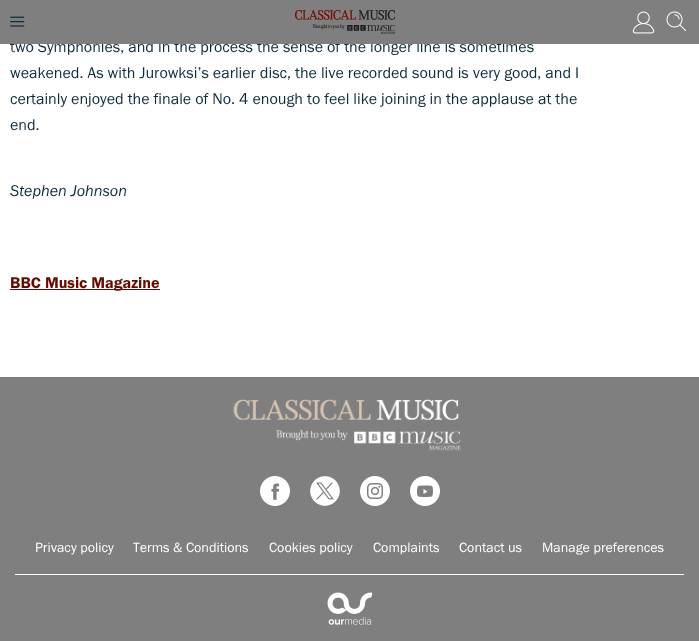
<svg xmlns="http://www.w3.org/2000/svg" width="699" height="641">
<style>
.a{font:16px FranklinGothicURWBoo;fill:#0f2c3b}
.b{font:italic 16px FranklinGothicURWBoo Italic;fill:#0f2c3b}
.c{font:16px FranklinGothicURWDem;fill:#650c02}
.d{font:14px FranklinGothicURWBoo;fill:#fff}
</style>
<rect width="100%" height="100%" fill="#fff"/>
<path fill="#650c02" d="M10 289h150v1H10z"/>
<path fill="#7f7f7f" d="M0 377h699v264H0z"/>
<image href="5.png" x="233" y="399" width="228" height="52"/>
<image href="6.png" x="260" y="476" width="30" height="30"/>
<image href="7.png" x="310" y="476" width="30" height="30"/>
<image href="8.png" x="360" y="476" width="30" height="30"/>
<image href="9.png" x="410" y="476" width="30" height="30"/>
<path fill="#fff" d="M15 574h669v1H15z"/>
<image href="10.png" x="327" y="592" width="46" height="33"/>
<text class="a" x="10" y="52">two Symphonies, and in the process the sense of the longer line is sometimes</text>
<path fill="#7f7f7f" d="M0 0h699v44H0z"/>
<image href="2.png" x="295" y="10" width="100" height="24"/>
<image href="1.png" x="10" y="16" width="15" height="11"/>
<image href="4.png" x="666" y="11" width="21" height="21"/>
<image href="3.png" x="632" y="11" width="23" height="23"/>
<text class="a" x="10" y="78">weakened. As with Jurowksi’s earlier disc, the live recorded sound is very good, and I</text>
<text class="a" x="10" y="104">certainly enjoyed the finale of No. 4 enough to feel like joining in the applause at the</text>
<text class="a" x="10" y="130">end.</text>
<text class="b" x="10" y="196">Stephen Johnson</text>
<text class="c" x="10" y="288">BBC Music Magazine</text>
<text class="d" x="35" y="552">Privacy policy</text>
<text class="d" x="133" y="552">Terms &amp; Conditions</text>
<text class="d" x="269" y="552">Cookies policy</text>
<text class="d" x="373" y="552">Complaints</text>
<text class="d" x="459" y="552">Contact us</text>
<text class="d" x="542" y="552">Manage preferences</text>
</svg>
